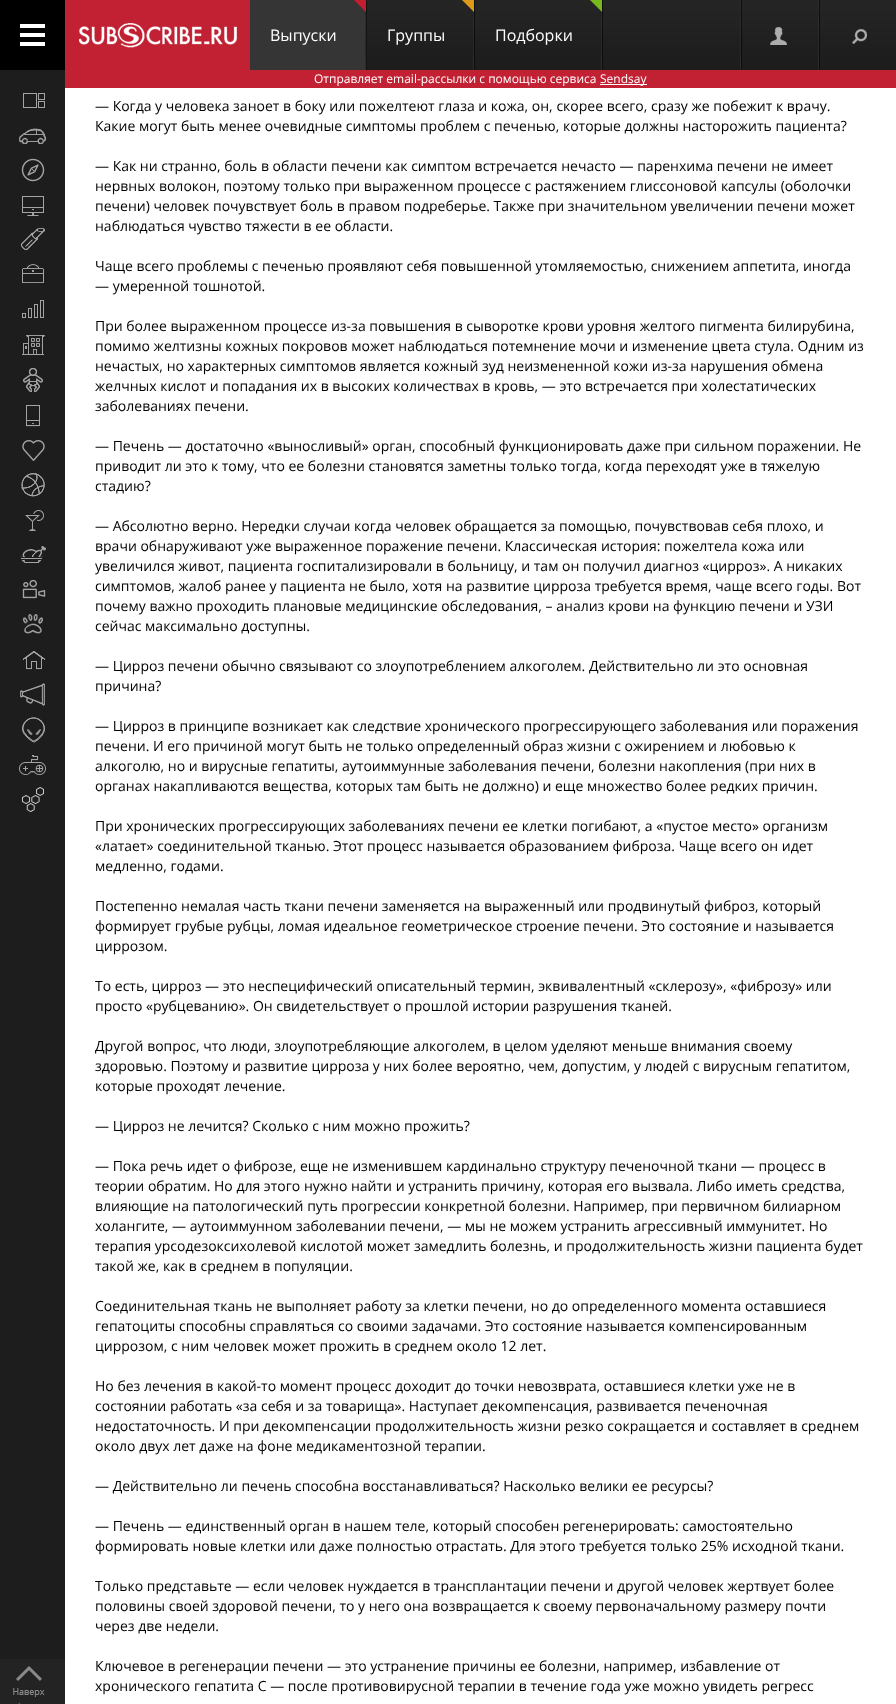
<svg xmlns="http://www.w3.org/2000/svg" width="896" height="1704">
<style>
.a{font:16px Open Sans;fill:#fff}
.b{font:12px Open Sans;fill:#fff}
.c{font:14px Open Sans;fill:#000}
</style>
<rect width="100%" height="100%" fill="#fff"/>
<image href="1.png" x="367" y="0" width="529" height="70"/>
<path fill="#000" d="M0 0h65v70H0z"/>
<image href="2.png" x="20" y="24" width="25" height="22"/>
<path fill="#c12133" d="M65 0h185v70H65z"/>
<image href="3.png" x="79" y="23" width="158" height="25"/>
<path fill="#353535" d="M250 0h117v70H250z"/>
<image href="4.png" x="365" y="0" width="2" height="70"/>
<image href="5.png" x="354" y="0" width="12" height="12"/>
<image href="6.png" x="473" y="0" width="2" height="70"/>
<image href="7.png" x="462" y="0" width="12" height="12"/>
<image href="6.png" x="601" y="0" width="2" height="70"/>
<image href="8.png" x="590" y="0" width="12" height="12"/>
<image href="6.png" x="740" y="0" width="2" height="70"/>
<image href="6.png" x="818" y="0" width="2" height="70"/>
<image href="9.png" x="770" y="27" width="17" height="18"/>
<image href="10.png" x="852" y="29" width="15" height="15"/>
<path fill="#c12133" d="M65 70h831v18H65z"/>
<path fill="#fff" d="M600 84h47v1H600z"/>
<path fill="#1d1d1d" d="M0 70h65v1589H0z"/>
<image href="11.png" x="23" y="93" width="22" height="15"/>
<image href="12.png" x="19" y="128" width="28" height="16"/>
<image href="13.png" x="21" y="158" width="24" height="24"/>
<image href="14.png" x="22" y="196" width="22" height="20"/>
<image href="15.png" x="20" y="228" width="25" height="23"/>
<image href="16.png" x="22" y="264" width="22" height="19"/>
<image href="17.png" x="22" y="300" width="22" height="18"/>
<image href="18.png" x="22" y="335" width="23" height="20"/>
<image href="19.png" x="23" y="368" width="20" height="24"/>
<image href="20.png" x="26" y="405" width="14" height="22"/>
<image href="21.png" x="22" y="440" width="23" height="21"/>
<image href="22.png" x="21" y="473" width="24" height="24"/>
<image href="23.png" x="25" y="510" width="19" height="21"/>
<image href="24.png" x="20" y="546" width="26" height="17"/>
<image href="25.png" x="22" y="579" width="24" height="20"/>
<image href="26.png" x="23" y="614" width="20" height="20"/>
<image href="27.png" x="23" y="651" width="22" height="19"/>
<image href="28.png" x="20" y="683" width="25" height="23"/>
<image href="29.png" x="22" y="717" width="23" height="26"/>
<image href="30.png" x="19" y="755" width="27" height="20"/>
<image href="31.png" x="22" y="787" width="22" height="25"/>
<path fill="#232323" d="M0 1659h65v45H0z"/>
<image href="32.png" x="13" y="1666" width="32" height="38"/>
<text class="a" x="270" y="41">Выпуски</text>
<text class="a" x="387" y="41">Группы</text>
<text class="a" x="495" y="41">Подборки</text>
<text class="b" x="314" y="83">Отправляет email-рассылки с помощью сервиса</text>
<text class="b" x="600" y="83">Sendsay</text>
<text class="c" x="95" y="111">— Когда у человека заноет в боку или пожелтеют глаза и кожа, он, скорее всего, сразу же побежит к врачу.</text>
<text class="c" x="95" y="131">Какие могут быть менее очевидные симптомы проблем с печенью, которые должны насторожить пациента?</text>
<text class="c" x="95" y="171">— Как ни странно, боль в области печени как симптом встречается нечасто — паренхима печени не имеет</text>
<text class="c" x="95" y="191">нервных волокон, поэтому только при выраженном процессе с растяжением глиссоновой капсулы (оболочки</text>
<text class="c" x="95" y="211">печени) человек почувствует боль в правом подреберье. Также при значительном увеличении печени может</text>
<text class="c" x="95" y="231">наблюдаться чувство тяжести в ее области.</text>
<text class="c" x="95" y="271">Чаще всего проблемы с печенью проявляют себя повышенной утомляемостью, снижением аппетита, иногда</text>
<text class="c" x="95" y="291">— умеренной тошнотой.</text>
<text class="c" x="95" y="331">При более выраженном процессе из-за повышения в сыворотке крови уровня желтого пигмента билирубина,</text>
<text class="c" x="95" y="351">помимо желтизны кожных покровов может наблюдаться потемнение мочи и изменение цвета стула. Одним из</text>
<text class="c" x="95" y="371">нечастых, но характерных симптомов является кожный зуд неизмененной кожи из-за нарушения обмена</text>
<text class="c" x="95" y="391">желчных кислот и попадания их в высоких количествах в кровь, — это встречается при холестатических</text>
<text class="c" x="95" y="411">заболеваниях печени.</text>
<text class="c" x="95" y="451">— Печень — достаточно «выносливый» орган, способный функционировать даже при сильном поражении. Не</text>
<text class="c" x="95" y="471">приводит ли это к тому, что ее болезни становятся заметны только тогда, когда переходят уже в тяжелую</text>
<text class="c" x="95" y="491">стадию?</text>
<text class="c" x="95" y="531">— Абсолютно верно. Нередки случаи когда человек обращается за помощью, почувствовав себя плохо, и</text>
<text class="c" x="95" y="551">врачи обнаруживают уже выраженное поражение печени. Классическая история: пожелтела кожа или</text>
<text class="c" x="95" y="571">увеличился живот, пациента госпитализировали в больницу, и там он получил диагноз «цирроз». А никаких</text>
<text class="c" x="95" y="591">симптомов, жалоб ранее у пациента не было, хотя на развитие цирроза требуется время, чаще всего годы. Вот</text>
<text class="c" x="95" y="611">почему важно проходить плановые медицинские обследования, – анализ крови на функцию печени и УЗИ</text>
<text class="c" x="95" y="631">сейчас максимально доступны.</text>
<text class="c" x="95" y="671">— Цирроз печени обычно связывают со злоупотреблением алкоголем. Действительно ли это основная</text>
<text class="c" x="95" y="691">причина?</text>
<text class="c" x="95" y="731">— Цирроз в принципе возникает как следствие хронического прогрессирующего заболевания или поражения</text>
<text class="c" x="95" y="751">печени. И его причиной могут быть не только определенный образ жизни с ожирением и любовью к</text>
<text class="c" x="95" y="771">алкоголю, но и вирусные гепатиты, аутоиммунные заболевания печени, болезни накопления (при них в</text>
<text class="c" x="95" y="791">органах накапливаются вещества, которых там быть не должно) и еще множество более редких причин.</text>
<text class="c" x="95" y="831">При хронических прогрессирующих заболеваниях печени ее клетки погибают, а «пустое место» организм</text>
<text class="c" x="95" y="851">«латает» соединительной тканью. Этот процесс называется образованием фиброза. Чаще всего он идет</text>
<text class="c" x="95" y="871">медленно, годами.</text>
<text class="c" x="95" y="911">Постепенно немалая часть ткани печени заменяется на выраженный или продвинутый фиброз, который</text>
<text class="c" x="95" y="931">формирует грубые рубцы, ломая идеальное геометрическое строение печени. Это состояние и называется</text>
<text class="c" x="95" y="951">циррозом.</text>
<text class="c" x="95" y="991">То есть, цирроз — это неспецифический описательный термин, эквивалентный «склерозу», «фиброзу» или</text>
<text class="c" x="95" y="1011">просто «рубцеванию». Он свидетельствует о прошлой истории разрушения тканей.</text>
<text class="c" x="95" y="1051">Другой вопрос, что люди, злоупотребляющие алкоголем, в целом уделяют меньше внимания своему</text>
<text class="c" x="95" y="1071">здоровью. Поэтому и развитие цирроза у них более вероятно, чем, допустим, у людей с вирусным гепатитом,</text>
<text class="c" x="95" y="1091">которые проходят лечение.</text>
<text class="c" x="95" y="1131">— Цирроз не лечится? Сколько с ним можно прожить?</text>
<text class="c" x="95" y="1171">— Пока речь идет о фиброзе, еще не изменившем кардинально структуру печеночной ткани — процесс в</text>
<text class="c" x="95" y="1191">теории обратим. Но для этого нужно найти и устранить причину, которая его вызвала. Либо иметь средства,</text>
<text class="c" x="95" y="1211">влияющие на патологический путь прогрессии конкретной болезни. Например, при первичном билиарном</text>
<text class="c" x="95" y="1231">холангите, — аутоиммунном заболевании печени, — мы не можем устранить агрессивный иммунитет. Но</text>
<text class="c" x="95" y="1251">терапия урсодезоксихолевой кислотой может замедлить болезнь, и продолжительность жизни пациента будет</text>
<text class="c" x="95" y="1271">такой же, как в среднем в популяции.</text>
<text class="c" x="95" y="1311">Соединительная ткань не выполняет работу за клетки печени, но до определенного момента оставшиеся</text>
<text class="c" x="95" y="1331">гепатоциты способны справляться со своими задачами. Это состояние называется компенсированным</text>
<text class="c" x="95" y="1351">циррозом, с ним человек может прожить в среднем около 12 лет.</text>
<text class="c" x="95" y="1391">Но без лечения в какой-то момент процесс доходит до точки невозврата, оставшиеся клетки уже не в</text>
<text class="c" x="95" y="1411">состоянии работать «за себя и за товарища». Наступает декомпенсация, развивается печеночная</text>
<text class="c" x="95" y="1431">недостаточность. И при декомпенсации продолжительность жизни резко сокращается и составляет в среднем</text>
<text class="c" x="95" y="1451">около двух лет даже на фоне медикаментозной терапии.</text>
<text class="c" x="95" y="1491">— Действительно ли печень способна восстанавливаться? Насколько велики ее ресурсы?</text>
<text class="c" x="95" y="1531">— Печень — единственный орган в нашем теле, который способен регенерировать: самостоятельно</text>
<text class="c" x="95" y="1551">формировать новые клетки или даже полностью отрастать. Для этого требуется только 25% исходной ткани.</text>
<text class="c" x="95" y="1591">Только представьте — если человек нуждается в трансплантации печени и другой человек жертвует более</text>
<text class="c" x="95" y="1611">половины своей здоровой печени, то у него она возвращается к своему первоначальному размеру почти</text>
<text class="c" x="95" y="1631">через две недели.</text>
<text class="c" x="95" y="1671">Ключевое в регенерации печени — это устранение причины ее болезни, например, избавление от</text>
<text class="c" x="95" y="1691">хронического гепатита С — после противовирусной терапии в течение года уже можно увидеть регресс</text>
</svg>
